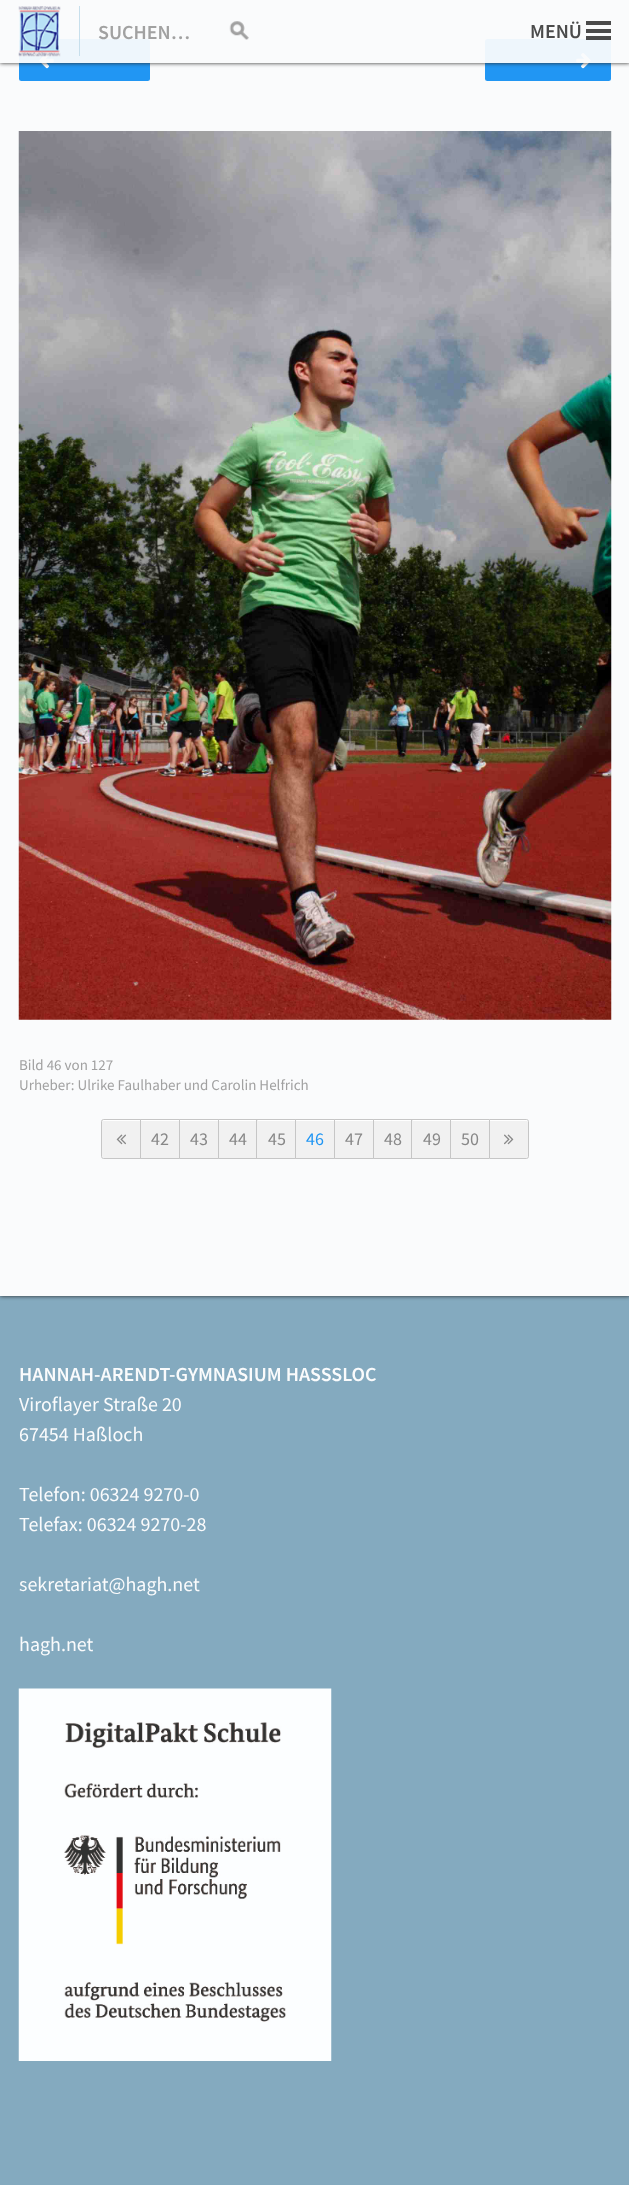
<svg xmlns="http://www.w3.org/2000/svg" width="629" height="2185">
<style>
.a{font:600 20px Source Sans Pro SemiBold;fill:#a1a1a1}
.b{font:600 20px Source Sans Pro SemiBold;fill:#4b4b4b}
.c{font:15px Source Sans Pro;fill:#a1a1a1}
.d{font:18px Source Sans Pro;fill:#888}
.e{font:18px Source Sans Pro;fill:#2196f3}
.f{font:600 20px Source Sans Pro SemiBold;fill:#fafbfc}
.g{font:20px Source Sans Pro;fill:#fafbfc}
</style>
<defs>
<clipPath id="clip1"><path d="M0 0h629v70h-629zm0 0h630v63h-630z" clip-rule="evenodd"/></clipPath>
<clipPath id="clip2"><path d="M141 1120h38v38H141z"/></clipPath>
<clipPath id="clip3"><path d="M180 1120h38v38H180z"/></clipPath>
<clipPath id="clip4"><path d="M219 1120h37v38H219z"/></clipPath>
<clipPath id="clip5"><path d="M258 1120h37v38H258z"/></clipPath>
<clipPath id="clip6"><path d="M296 1120h38v38H296z"/></clipPath>
<clipPath id="clip7"><path d="M335 1120h38v38H335z"/></clipPath>
<clipPath id="clip8"><path d="M374 1120h37v38H374z"/></clipPath>
<clipPath id="clip9"><path d="M413 1120h37v38H413z"/></clipPath>
<clipPath id="clip10"><path d="M451 1120h38v38H451z"/></clipPath>
</defs>
<rect width="100%" height="100%" fill="#84aabf"/>
<path fill="#242424" filter="blur(2px)" d="M0 -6h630v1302H0z"/>
<path fill="#fafbfc" d="M0 0h629v1296H0z"/>
<rect fill="#2196f3" x="19" y="39" width="131" height="42" rx="2.5"/>
<image href="3.png" x="39" y="56" width="15" height="13"/>
<rect fill="#2196f3" x="485" y="39" width="126" height="42" rx="2.5"/>
<image href="4.png" x="576" y="53" width="15" height="16"/>
<g clip-path="url(#clip1)">
<path fill="#242424" filter="blur(2px)" d="M0 0h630v63H0z"/>
</g>
<path fill="#fafbfcf2" d="M0 39h629v24H0z"/>
<image href="1.png" x="18" y="6" width="43" height="51"/>
<path fill="#c7dfec" d="M79 6h1v50H79z"/>
<image href="2.png" x="229" y="21" width="20" height="19"/>
<path fill="#4b4b4b" d="M586 21h25v4H586z"/>
<path fill="#4b4b4b" d="M586 29h25v4H586z"/>
<path fill="#4b4b4b" d="M586 36h25v4H586z"/>
<image href="5.png" x="18" y="131" width="594" height="889"/>
<path fill="#f1f1f1" d="M103.5 1119h37.5v40h-37.5c-1.5 0-2.5-1-2.5-2.5v-35c0-1.5 1-2.5 2.5-2.5z"/>
<path fill="#fff" d="M104 1121h36v-1h-36c-.5 0-1 .5-1 1z"/>
<path fill="none" stroke="#c6c6c6" d="M103.5 1119.5h37v39h-37c-1 0-2-1-2-2v-35c0-1 1-2 2-2z"/>
<image href="6.png" x="116" y="1134" width="10" height="11"/>
<path fill="#f1f1f1" d="M141 1121h38v37H141z"/>
<g clip-path="url(#clip2)">
<path fill="#fff" fill-rule="evenodd" d="M18 996h284v285h-284zm123 125h38c0 0 1 1 1 1v38c0 1-1 1-1 1h-38c0 0-1 0-1-1v-38c0 0 1-1 1-1z"/>
</g>
<path fill="none" stroke="#c6c6c6" d="M140.5 1119.5h39v39H140.5z"/>
<path fill="#f1f1f1" d="M180 1121h38v37H180z"/>
<g clip-path="url(#clip3)">
<path fill="#fff" fill-rule="evenodd" d="M56 996h285v285h-285zm124 125h38c0 0 1 1 1 1v38c0 1-1 1-1 1h-38c-1 0-1 0-1-1v-38c0 0 0-1 1-1z"/>
</g>
<path fill="none" stroke="#c6c6c6" d="M179.5 1119.5h39v39H179.5z"/>
<path fill="#f1f1f1" d="M219 1121h37v37H219z"/>
<g clip-path="url(#clip4)">
<path fill="#fff" fill-rule="evenodd" d="M95 996h285v285h-285zm124 125h37c1 0 2 1 2 1v38c0 1-1 1-2 1h-37c-1 0-1 0-1-1v-38c0 0 0-1 1-1z"/>
</g>
<path fill="none" stroke="#c6c6c6" d="M218.5 1119.5h39v39H218.5z"/>
<path fill="#f1f1f1" d="M257 1120h38v38H257z"/>
<g clip-path="url(#clip5)">
<path fill="#fff" fill-rule="evenodd" d="M134 996h285v285h-285zm124 125h37c1 0 1 1 1 1v38c0 1 0 1-1 1h-37c-1 0-2 0-2-1v-38c0 0 1-1 2-1z"/>
</g>
<path fill="none" stroke="#c6c6c6" d="M256.5 1119.5h39v39H256.5z"/>
<path fill="#f1f1f1" d="M296 1121h38v37H296z"/>
<g clip-path="url(#clip6)">
<path fill="#fff" fill-rule="evenodd" d="M172 996h286v285h-286zm124 125h38c0 0 1 1 1 1v38c0 1-1 1-1 1h-38c0 0-1 0-1-1v-38c0 0 1-1 1-1z"/>
</g>
<path fill="none" stroke="#c6c6c6" d="M295.5 1119.5h39v39H295.5z"/>
<path fill="#f1f1f1" d="M335 1121h38v37H335z"/>
<g clip-path="url(#clip7)">
<path fill="#fff" fill-rule="evenodd" d="M211 996h285v285h-285zm124 125h37c1 0 2 1 2 1v38c0 1-1 1-2 1h-37c-1 0-1 0-1-1v-38c0 0 0-1 1-1z"/>
</g>
<path fill="none" stroke="#c6c6c6" d="M334.5 1119.5h39v39H334.5z"/>
<path fill="#f1f1f1" d="M374 1121h37v37H374z"/>
<g clip-path="url(#clip8)">
<path fill="#fff" fill-rule="evenodd" d="M250 996h285v285h-285zm124 125h37c1 0 1 1 1 1v38c0 1 0 1-1 1h-37c-1 0-2 0-2-1v-38c0 0 1-1 2-1z"/>
</g>
<path fill="none" stroke="#c6c6c6" d="M373.5 1119.5h39v39H373.5z"/>
<path fill="#f1f1f1" d="M412 1120h38v38H412z"/>
<g clip-path="url(#clip9)">
<path fill="#fff" fill-rule="evenodd" d="M289 996h285v285h-285zm123 125h38c1 0 1 1 1 1v38c0 1 0 1-1 1h-38c0 0-1 0-1-1v-38c0 0 1-1 1-1z"/>
</g>
<path fill="none" stroke="#c6c6c6" d="M411.5 1119.5h39v39H411.5z"/>
<path fill="#f1f1f1" d="M451 1121h38v37H451z"/>
<g clip-path="url(#clip10)">
<path fill="#fff" fill-rule="evenodd" d="M328 996h284v285h-284zm123 125h38c0 0 1 1 1 1v38c0 1-1 1-1 1h-38c0 0-1 0-1-1v-38c0 0 1-1 1-1z"/>
</g>
<path fill="none" stroke="#c6c6c6" d="M450.5 1119.5h39v39H450.5z"/>
<path fill="#f1f1f1" d="M489 1119h37.5c1.5 0 2.5 1 2.5 2.5v35c0 1.5-1 2.5-2.5 2.5h-37.5z"/>
<path fill="#fff" d="M490 1121h36c1 0 1.5 0 2 .5v-.5c0-.5-.5-1-1-1h-37z"/>
<path fill="none" stroke="#c6c6c6" d="M489.5 1119.5h37c1 0 2 1 2 2v35c0 1-1 2-2 2h-37z"/>
<image href="7.png" x="504" y="1134" width="10" height="11"/>
<image href="8.png" x="18" y="1688" width="314" height="373"/>
<text class="a" x="98" y="39">SUCHEN…</text>
<text class="b" x="530" y="38">MENÜ</text>
<text class="c" x="19" y="1070">Bild 46 von 127</text>
<text class="c" x="19" y="1090">Urheber: Ulrike Faulhaber und Carolin Helfrich</text>
<text class="d" x="151" y="1145">42</text>
<text class="d" x="190" y="1145">43</text>
<text class="d" x="229" y="1145">44</text>
<text class="d" x="268" y="1145">45</text>
<text class="e" x="306" y="1145">46</text>
<text class="d" x="345" y="1145">47</text>
<text class="d" x="384" y="1145">48</text>
<text class="d" x="423" y="1145">49</text>
<text class="d" x="461" y="1145">50</text>
<text class="f" x="19" y="1381">HANNAH-ARENDT-GYMNASIUM HASSSLOC</text>
<text class="g" x="19" y="1411">Viroflayer Straße 20</text>
<text class="g" x="19" y="1441">67454 Haßloch</text>
<text class="g" x="19" y="1501">Telefon: 06324 9270-0</text>
<text class="g" x="19" y="1531">Telefax: 06324 9270-28</text>
<text class="g" x="19" y="1591">sekretariat@hagh.net</text>
<text class="g" x="19" y="1651">hagh.net</text>
</svg>
